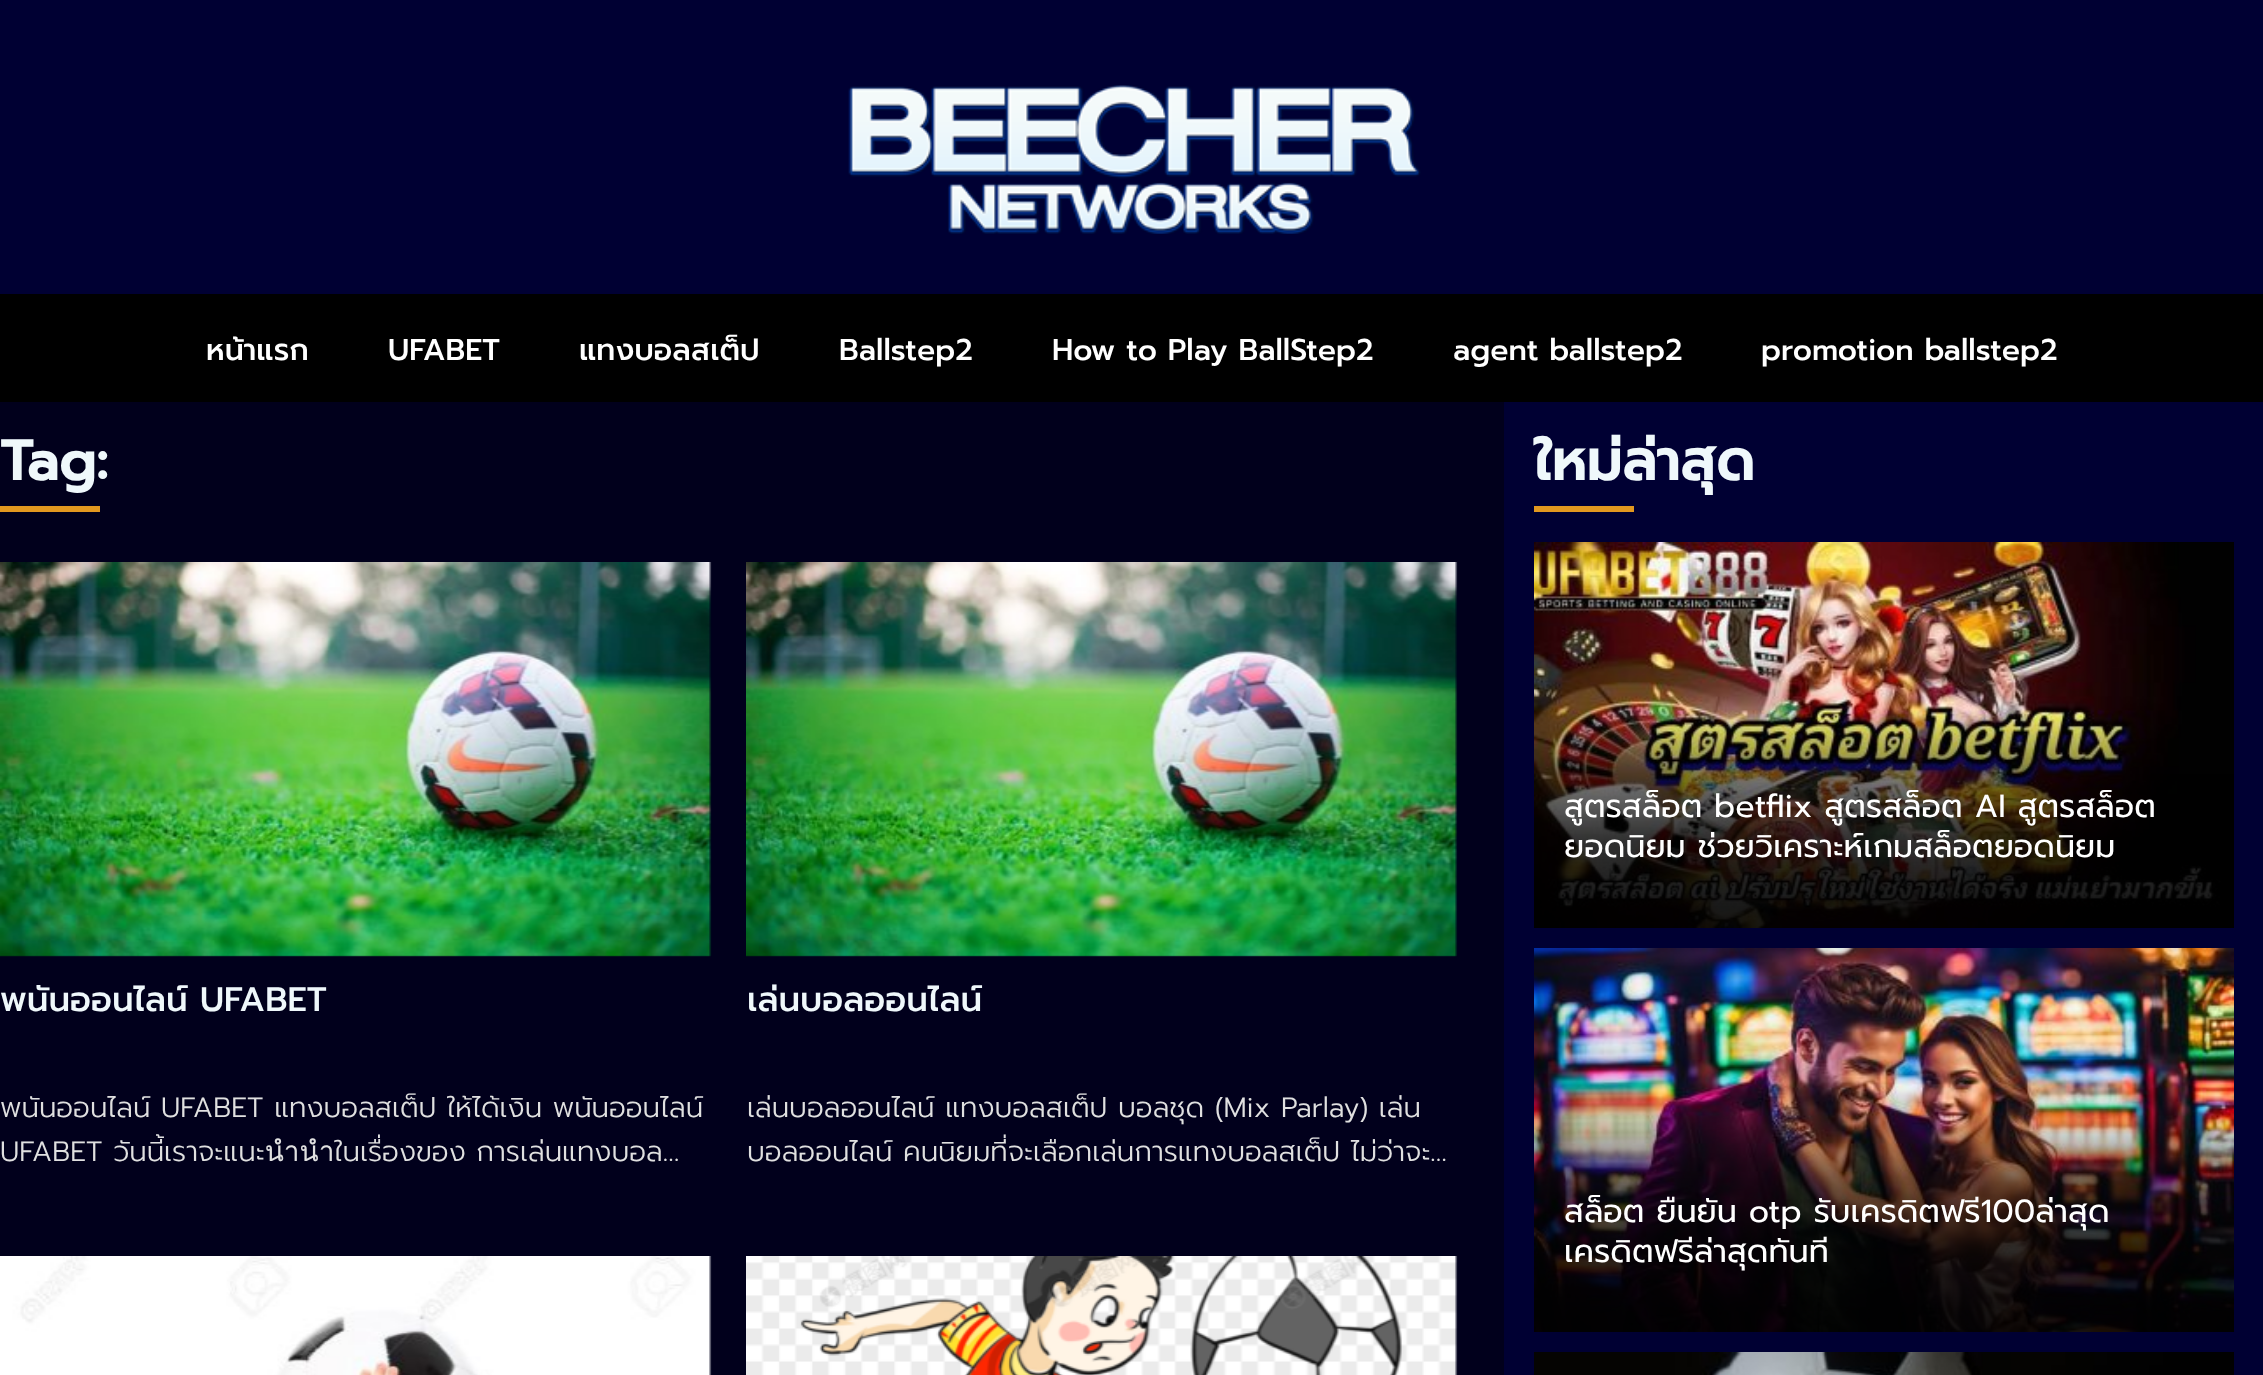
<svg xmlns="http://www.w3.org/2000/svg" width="2263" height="1375">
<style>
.a{font:500 30px Prompt;fill:#fff}
.b{font:bold 56px Prompt;fill:#eff8fb}
.c{font:500 34px Prompt;fill:#eff8fb}
.d{font:300 28px Prompt;fill:#e0e0e0}
.e{font:32px Prompt;fill:#fff}
</style>
<defs>
<clipPath id="clip1"><path d="M1564 788h640v80H1564z"/></clipPath>
</defs>
<rect width="100%" height="100%" fill="#01001c"/>
<path fill="#003" d="M0 0h2263v294H0z"/>
<image href="1.png" x="848" y="85" width="573" height="149"/>
<path fill="#000" d="M0 294h2263v108H0z"/>
<path fill="#e2981f" d="M0 506h100v6H0z"/>
<image href="2.png" x="0" y="562" width="712" height="395"/>
<image href="3.png" x="746" y="562" width="712" height="395"/>
<image href="4.png" x="0" y="1256" width="712" height="119"/>
<image href="5.png" x="746" y="1256" width="712" height="119"/>
<path fill="#003" d="M1504 402h759v973H1504z"/>
<path fill="#e2981f" d="M1534 506h100v6H1534z"/>
<image href="6.png" x="1534" y="542" width="700" height="386"/>
<image href="7.png" x="1534" y="948" width="700" height="384"/>
<image href="8.png" x="1534" y="1352" width="700" height="23"/>
<text class="a" x="206" y="360">หน้าแรก</text>
<text class="a" x="388" y="360">UFABET</text>
<text class="a" x="579" y="360">แทงบอลสเต็ป</text>
<text class="a" x="839" y="360">Ballstep2</text>
<text class="a" x="1052" y="360">How to Play BallStep2</text>
<text class="a" x="1453" y="360">agent ballstep2</text>
<text class="a" x="1761" y="360">promotion ballstep2</text>
<text class="b" x="0" y="480">Tag:</text>
<text class="c" x="0" y="1011">พนันออนไลน์ UFABET</text>
<text class="d" x="0" y="1117">พนันออนไลน์ UFABET แทงบอลสเต็ป ให้ได้เงิน พนันออนไลน์</text>
<text class="d" x="0" y="1161">UFABET วันนี้เราจะแนะนำนำในเรื่องของ การเล่นแทงบอล…</text>
<text class="c" x="747" y="1011">เล่นบอลออนไลน์</text>
<text class="d" x="747" y="1117">เล่นบอลออนไลน์ แทงบอลสเต็ป บอลชุด (Mix Parlay) เล่น</text>
<text class="d" x="747" y="1161">บอลออนไลน์ คนนิยมที่จะเลือกเล่นการแทงบอลสเต็ป ไม่ว่าจะ…</text>
<text class="b" x="1534" y="480">ใหม่ล่าสุด</text>
<g clip-path="url(#clip1)">
<text class="e" x="1564" y="817">สูตรสล็อต betflix สูตรสล็อต AI สูตรสล็อต</text>
</g>
<text class="e" x="1564" y="857">ยอดนิยม ช่วยวิเคราะห์เกมสล็อตยอดนิยม</text>
<text class="e" x="1564" y="1222">สล็อต ยืนยัน otp รับเครดิตฟรี100ล่าสุด</text>
<text class="e" x="1564" y="1262">เครดิตฟรีล่าสุดทันที</text>
</svg>
